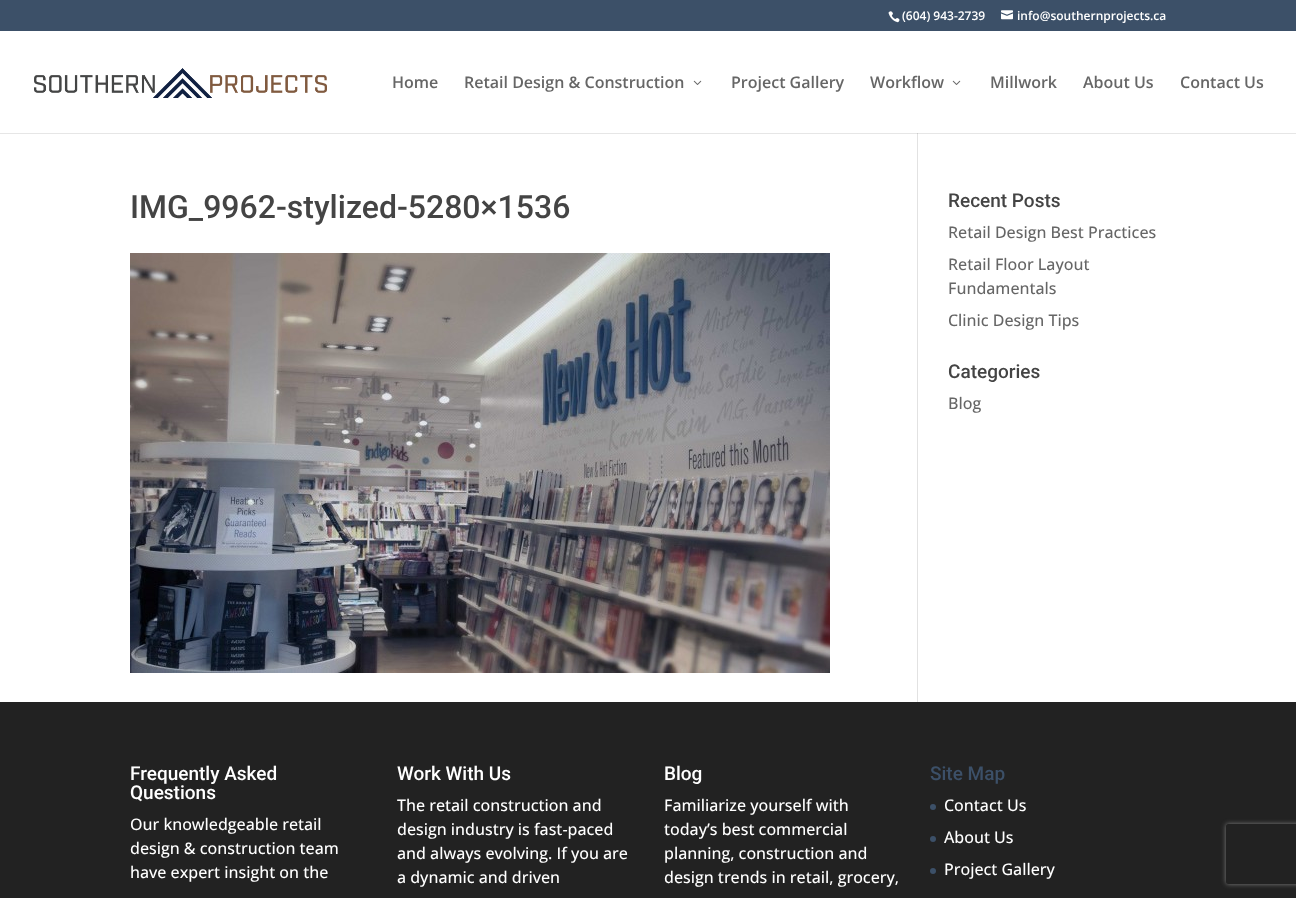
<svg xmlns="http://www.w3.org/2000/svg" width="1296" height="898">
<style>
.a{font:600 12px Open Sans;fill:#fff}
.b{font:600 16px Open Sans;fill:#666}
.c{font:500 32px Roboto;fill:#444}
.d{font:500 19px Roboto;fill:#444}
.e{font:500 16px Open Sans;fill:#666}
.f{font:500 19px Roboto;fill:#fff}
.g{font:500 16px Open Sans;fill:#fff}
.h{font:500 19px Roboto;fill:#3c5068}
</style>
<defs>
<clipPath id="clip1"><path d="M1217 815h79v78h-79zm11 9h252c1 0 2 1 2 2v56c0 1-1 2-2 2h-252c-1 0-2-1-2-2v-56c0-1 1-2 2-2z" clip-rule="evenodd"/></clipPath>
</defs>
<rect width="100%" height="100%" fill="#3c5068"/>
<image href="1.png" x="888" y="11" width="12" height="12"/>
<image href="2.png" x="1001" y="10" width="12" height="10"/>
<path fill="#fff" d="M0 31h1296v102H0z"/>
<image href="3.png" x="34" y="68" width="293" height="30"/>
<image href="4.png" x="693" y="80" width="9" height="5"/>
<image href="4.png" x="952" y="80" width="9" height="5"/>
<path fill="#fff" d="M0 134h1296v568H0z"/>
<path fill="#e6e6e6" d="M0 133h1296v1H0z"/>
<path fill="#e2e2e2" d="M917 133h1v569H917z"/>
<path fill="#cbcbcb" d="M917 133h1v1H917z"/>
<image href="5.png" x="130" y="253" width="700" height="420"/>
<path fill="#222" d="M0 702h1296v196H0z"/>
<circle fill="#3c5068" cx="933" cy="807" r="3"/>
<circle fill="#3c5068" cx="933" cy="839" r="3"/>
<circle fill="#3c5068" cx="933" cy="871" r="3"/>
<g clip-path="url(#clip1)">
<rect fill="#808080" filter="blur(2.5px)" x="1226" y="824" width="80" height="60" rx="2"/>
</g>
<text class="a" x="902" y="20">(604) 943-2739</text>
<text class="a" x="1017" y="20">info@southernprojects.ca</text>
<text class="b" x="392" y="88">Home</text>
<text class="b" x="464" y="88">Retail Design &amp; Construction</text>
<text class="b" x="731" y="88">Project Gallery</text>
<text class="b" x="870" y="88">Workflow</text>
<text class="b" x="990" y="88">Millwork</text>
<text class="b" x="1083" y="88">About Us</text>
<text class="b" x="1180" y="88">Contact Us</text>
<text class="c" x="130" y="218">IMG_9962-stylized-5280×1536</text>
<text class="d" x="948" y="207">Recent Posts</text>
<text class="e" x="948" y="238">Retail Design Best Practices</text>
<text class="e" x="948" y="270">Retail Floor Layout</text>
<text class="e" x="948" y="294">Fundamentals</text>
<text class="e" x="948" y="326">Clinic Design Tips</text>
<text class="d" x="948" y="378">Categories</text>
<text class="e" x="948" y="409">Blog</text>
<text class="f" x="130" y="780">Frequently Asked</text>
<text class="f" x="130" y="799">Questions</text>
<text class="g" x="130" y="830">Our knowledgeable retail</text>
<text class="g" x="130" y="854">design &amp; construction team</text>
<text class="g" x="130" y="878">have expert insight on the</text>
<text class="f" x="397" y="780">Work With Us</text>
<text class="g" x="397" y="811">The retail construction and</text>
<text class="g" x="397" y="835">design industry is fast-paced</text>
<text class="g" x="397" y="859">and always evolving. If you are</text>
<text class="g" x="397" y="883">a dynamic and driven</text>
<text class="f" x="664" y="780">Blog</text>
<text class="g" x="664" y="811">Familiarize yourself with</text>
<text class="g" x="664" y="835">today’s best commercial</text>
<text class="g" x="664" y="859">planning, construction and</text>
<text class="g" x="664" y="883">design trends in retail, grocery,</text>
<text class="h" x="930" y="780">Site Map</text>
<text class="g" x="944" y="811">Contact Us</text>
<text class="g" x="944" y="843">About Us</text>
<text class="g" x="944" y="875">Project Gallery</text>
</svg>
